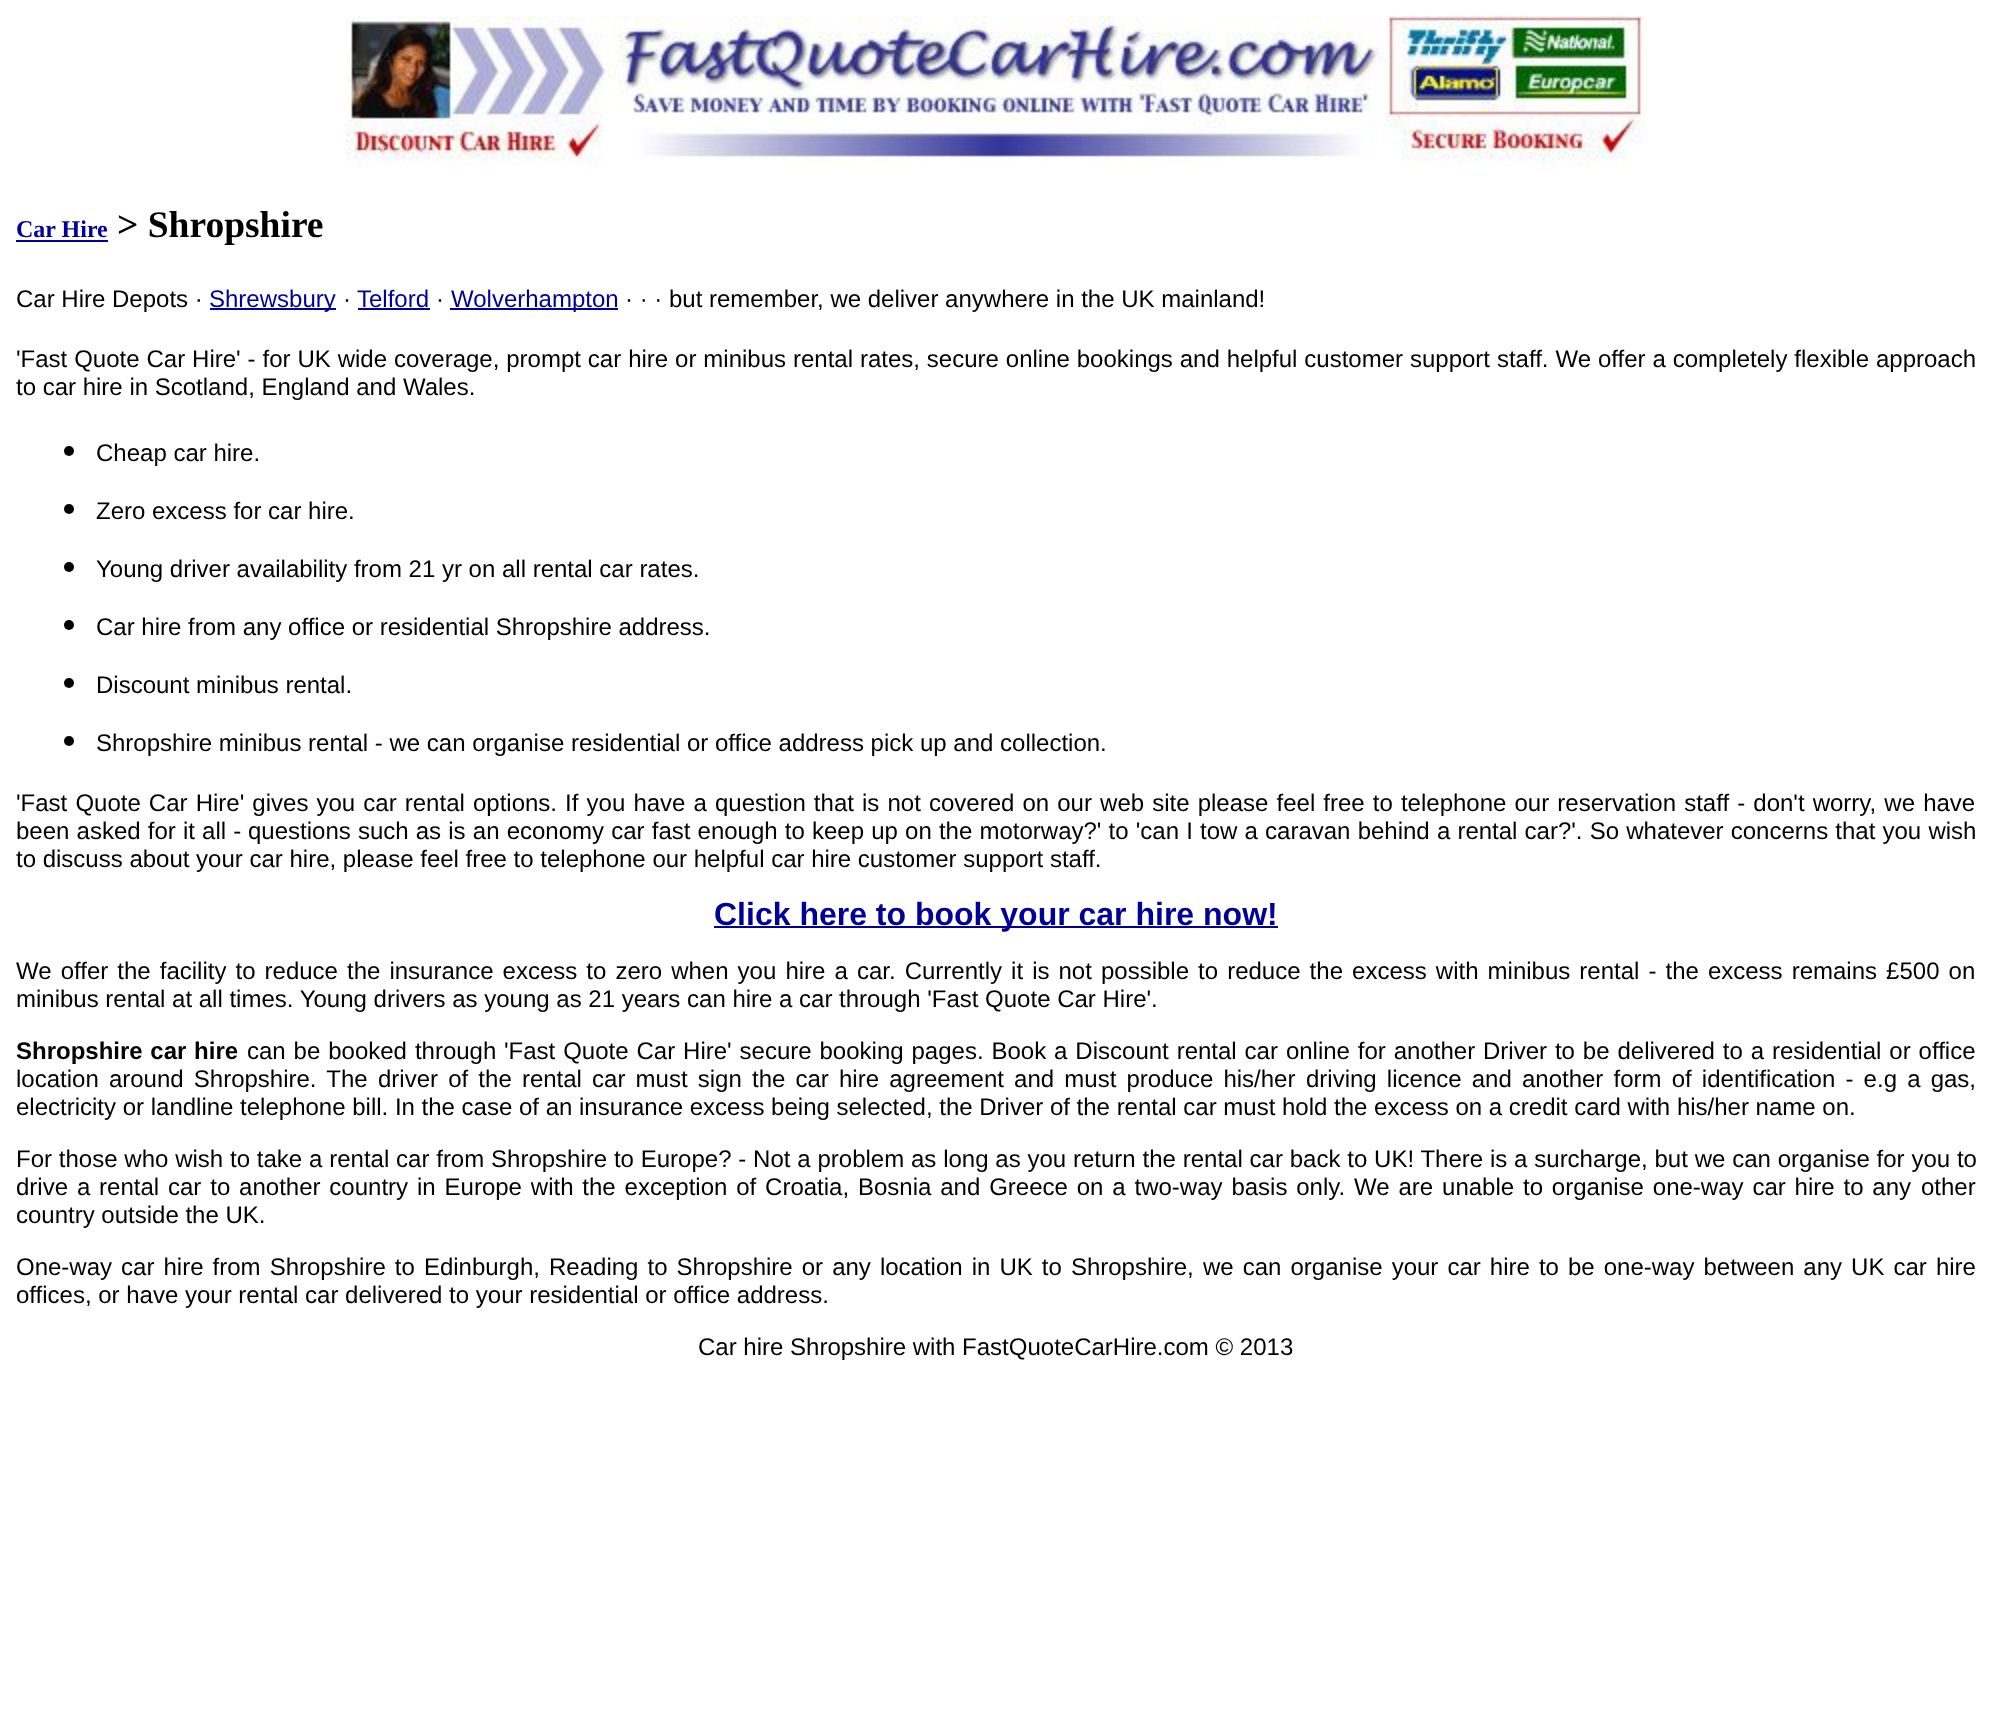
<svg xmlns="http://www.w3.org/2000/svg" width="1991" height="1716">
<style>
.a{font:bold 24px Liberation Serif;fill:#009}
.b{font:bold 37.5px Liberation Serif;fill:#000}
.c{font:24px Liberation Sans;fill:#000}
.d{font:24px Liberation Sans;fill:#009}
.e{font:bold 32px Liberation Sans;fill:#009}
.f{font:bold 24px Liberation Sans;fill:#000}
</style>
<rect width="100%" height="100%" fill="#fff"/>
<image href="1.png" x="346" y="16" width="1300" height="150"/>
<path fill="#009" d="M16 240h92v2H16z"/>
<path fill="#009" d="M210 308h126v2H210z"/>
<path fill="#009" d="M358 308h72v2H358z"/>
<path fill="#009" d="M450 308h168v2H450z"/>
<circle fill="#000" cx="69" cy="451" r="5"/>
<circle fill="#000" cx="69" cy="509" r="5"/>
<circle fill="#000" cx="69" cy="567" r="5"/>
<circle fill="#000" cx="69" cy="625" r="5"/>
<circle fill="#000" cx="69" cy="683" r="5"/>
<circle fill="#000" cx="69" cy="741" r="5"/>
<path fill="#009" d="M714 926h564v2H714z"/>
<text class="a" x="16" y="237">Car Hire</text>
<text class="b" x="117" y="237">&gt; Shropshire</text>
<text class="c" x="16" y="307">Car Hire Depots ·</text>
<text class="d" x="209" y="307">Shrewsbury</text>
<text class="c" x="343" y="307">·</text>
<text class="d" x="357" y="307">Telford</text>
<text class="c" x="436" y="307">·</text>
<text class="d" x="451" y="307">Wolverhampton</text>
<text class="c" x="625" y="307">· · · but remember, we deliver anywhere in the UK mainland!</text>
<text class="c" x="16" y="367" word-spacing="0.25">'Fast Quote Car Hire' - for UK wide coverage, prompt car hire or minibus rental rates, secure online bookings and helpful customer support staff. We offer a completely flexible approach</text>
<text class="c" x="16" y="395">to car hire in Scotland, England and Wales.</text>
<text class="c" x="96" y="461">Cheap car hire.</text>
<text class="c" x="96" y="519">Zero excess for car hire.</text>
<text class="c" x="96" y="577">Young driver availability from 21 yr on all rental car rates.</text>
<text class="c" x="96" y="635">Car hire from any office or residential Shropshire address.</text>
<text class="c" x="96" y="693">Discount minibus rental.</text>
<text class="c" x="96" y="751">Shropshire minibus rental - we can organise residential or office address pick up and collection.</text>
<text class="c" x="16" y="811" word-spacing="1.45">'Fast Quote Car Hire' gives you car rental options. If you have a question that is not covered on our web site please feel free to telephone our reservation staff - don't worry, we have</text>
<text class="c" x="16" y="839" word-spacing="0.5">been asked for it all -</text>
<text class="c" x="248" y="839" word-spacing="0.5">questions such as is an economy car fast enough to keep up on the motorway?' to 'can I tow a caravan behind a rental car?'. So whatever concerns that you wish</text>
<text class="c" x="16" y="867">to discuss about your car hire, please feel free to telephone our helpful car hire customer support staff.</text>
<text class="e" x="714" y="925">Click here to book your car hire now!</text>
<text class="c" x="16" y="979" word-spacing="2.4">We offer the facility to reduce the insurance excess to zero when you hire a car. Currently it is not possible to reduce the excess with minibus rental - the excess remains £500 on</text>
<text class="c" x="16" y="1007">minibus rental at all times. Young drivers as young as 21 years can hire a car through 'Fast Quote Car Hire'.</text>
<text class="f" x="16" y="1059" word-spacing="1">Shropshire car hire</text>
<text class="c" x="247" y="1059" word-spacing="1.25">can be booked through</text>
<text class="c" x="504" y="1059" word-spacing="1.25">'Fast Quote Car Hire' secure booking pages. Book a Discount rental car online for another</text>
<text class="c" x="1483" y="1059" word-spacing="1.25">Driver to be delivered to a residential or office</text>
<text class="c" x="16" y="1087" word-spacing="3.5">location around Shropshire. The</text>
<text class="c" x="378" y="1087" word-spacing="3.5">driver of the rental car must sign the car hire agreement and must produce his/her</text>
<text class="c" x="1306" y="1087" word-spacing="3.5">driving licence and another form of identification - e.g a gas,</text>
<text class="c" x="16" y="1115">electricity or landline telephone bill. In the case of an insurance excess being selected, the Driver of the rental car must hold the excess on a credit card with his/her name on.</text>
<text class="c" x="16" y="1167" word-spacing="0.15">For those who wish to take a rental car from Shropshire to Europe? - Not a problem as long as you return the rental car back to UK! There is a surcharge, but we can organise for you to</text>
<text class="c" x="16" y="1195" word-spacing="2.2">drive a rental car to another country</text>
<text class="c" x="417" y="1195" word-spacing="2.2">in Europe with the exception of Croatia, Bosnia and Greece on a two-way basis only. We are unable to organise one-way car hire to any</text>
<text class="c" x="1921" y="1195">other</text>
<text class="c" x="16" y="1223">country outside the UK.</text>
<text class="c" x="16" y="1275" word-spacing="2.4">One-way car hire from Shropshire to Edinburgh, Reading to Shropshire or any location in UK to Shropshire,</text>
<text class="c" x="1203" y="1275" word-spacing="2.4">we can organise your car hire to be one-way between any UK car hire</text>
<text class="c" x="16" y="1303">offices, or have your rental car delivered to your residential or office address.</text>
<text class="c" x="698" y="1355">Car hire Shropshire with FastQuoteCarHire.com © 2013</text>
</svg>
